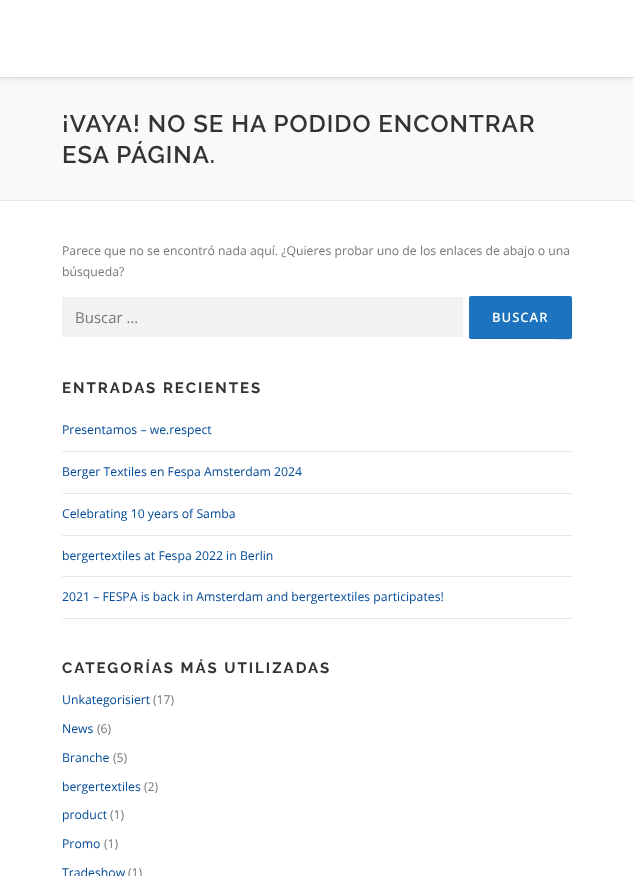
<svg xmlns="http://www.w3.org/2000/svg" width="634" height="876">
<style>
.a{font:600 24px Raleway;letter-spacing:1px;fill:#333}
.b{font:12.25px Open Sans;fill:#777}
.c{font:15px Open Sans;fill:#777}
.d{font:600 13px Open Sans;letter-spacing:1px;fill:#fff}
.e{font:bold 15px Raleway;letter-spacing:2px;fill:#333}
.f{font:12.25px Open Sans;fill:#004997}
</style>
<rect width="100%" height="100%" fill="#fff"/>
<path fill="#f8f9f9" d="M0 78h634v122H0z"/>
<path fill="#e9e9e9" d="M0 77h634v1H0z"/>
<path fill="#00000026" filter="blur(4px)" d="M0 0h634v77H0z"/>
<path fill="#fff" d="M0 0h634v77H0z"/>
<path fill="#e9e9e9" d="M0 200h634v1H0z"/>
<path fill="#f2f2f2" d="M62 297h401v40H62z"/>
<rect fill="#1e73be" x="469" y="296" width="103" height="43" rx="2"/>
<path fill="#0000001a" d="M469 336c0 1 0 3 2 3h83c1 0 18 5 18-3c0 1-1 2-2 2h-99c-1 0-2-1-2-2z"/>
<path fill="#e9e9e9" d="M62 451h510v1H62z"/>
<path fill="#e9e9e9" d="M62 493h510v1H62z"/>
<path fill="#e9e9e9" d="M62 535h510v1H62z"/>
<path fill="#e9e9e9" d="M62 576h510v1H62z"/>
<path fill="#e9e9e9" d="M62 618h510v1H62z"/>
<text class="a" x="62" y="132">¡VAYA! NO SE HA PODIDO ENCONTRAR</text>
<text class="a" x="62" y="163">ESA PÁGINA.</text>
<text class="b" x="62" y="255">Parece que no se encontró nada aquí. ¿Quieres probar uno de los enlaces de abajo o una</text>
<text class="b" x="62" y="276">búsqueda?</text>
<text class="c" x="75" y="323">Buscar …</text>
<text class="d" x="492" y="322">BUSCAR</text>
<text class="e" x="62" y="393">ENTRADAS RECIENTES</text>
<text class="f" x="62" y="434">Presentamos – we.respect</text>
<text class="f" x="62" y="476">Berger Textiles en Fespa Amsterdam 2024</text>
<text class="f" x="62" y="518">Celebrating 10 years of Samba</text>
<text class="f" x="62" y="560">bergertextiles at Fespa 2022 in Berlin</text>
<text class="f" x="62" y="601">2021 – FESPA is back in Amsterdam and bergertextiles participates!</text>
<text class="e" x="62" y="673">CATEGORÍAS MÁS UTILIZADAS</text>
<text class="f" x="62" y="704">Unkategorisiert</text>
<text class="b" x="153" y="704">(17)</text>
<text class="f" x="62" y="733">News</text>
<text class="b" x="97" y="733">(6)</text>
<text class="f" x="62" y="762">Branche</text>
<text class="b" x="113" y="762">(5)</text>
<text class="f" x="62" y="791">bergertextiles</text>
<text class="b" x="144" y="791">(2)</text>
<text class="f" x="62" y="819">product</text>
<text class="b" x="110" y="819">(1)</text>
<text class="f" x="62" y="848">Promo</text>
<text class="b" x="104" y="848">(1)</text>
<text class="f" x="62" y="877">Tradeshow</text>
<text class="b" x="128" y="877">(1)</text>
</svg>
